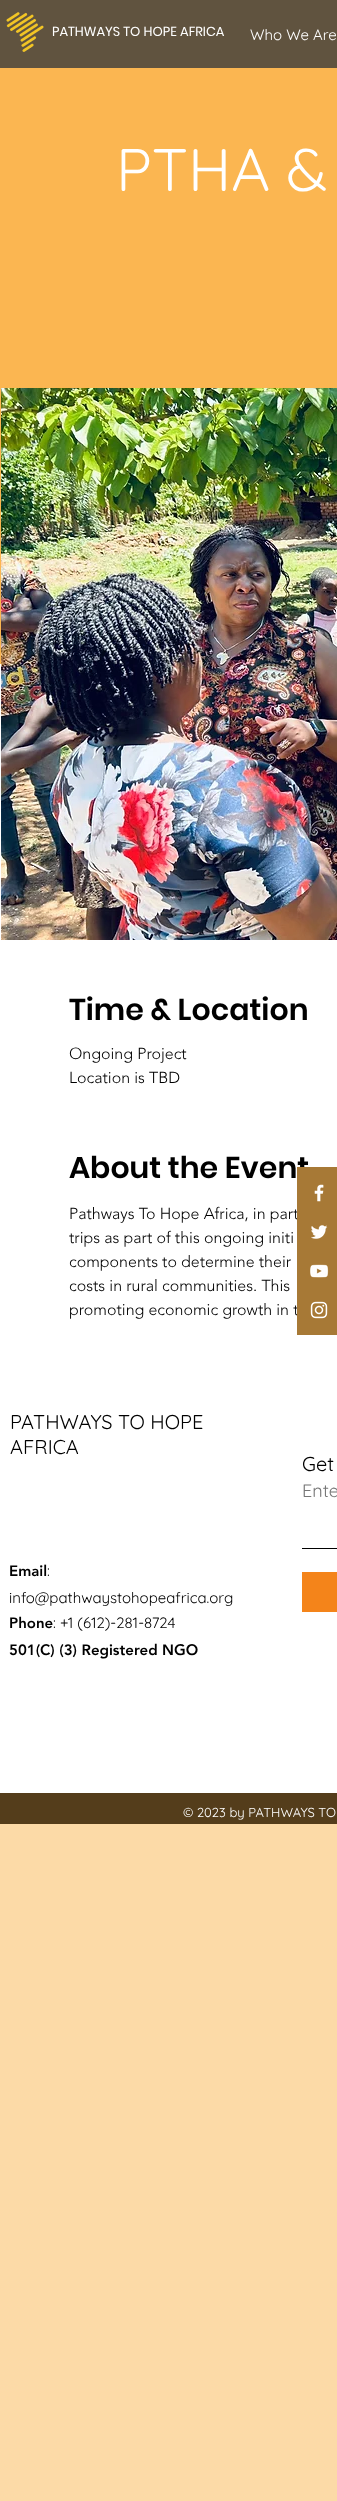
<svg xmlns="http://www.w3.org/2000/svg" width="337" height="2501">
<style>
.a{font:13px Poppins;fill:#fff}
.b{font:15px Quicksand;fill:#fff}
.c{font:60px Quicksand;fill:#fff}
.d{font:600 30px Poppins;fill:#000}
.e{font:300 16px 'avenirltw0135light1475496';fill:#000}
.f{font:20px Quicksand;fill:#000}
.g{font:900 15px 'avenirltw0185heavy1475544';fill:#000}
.h{font:15px Quicksand;fill:#000}
.i{font:18px Quicksand;fill:#757575}
.j{font:13px Quicksand;fill:#fff}
</style>
<rect width="100%" height="100%" fill="#fcdaa7"/>
<path fill="#60533f" d="M0 0h337v68H0z"/>
<image href="1.png" x="6" y="12" width="38" height="40"/>
<path fill="#fbb651" d="M0 68h337v596H0z"/>
<path fill="#fff" d="M0 664h337v1129H0z"/>
<image href="2.png" x="1" y="388" width="336" height="552"/>
<path fill="#000" d="M302 1548h35v1H302z"/>
<path fill="#f4841a" d="M302 1572h35v40H302z"/>
<path fill="#543d1b" d="M0 1793h337v31H0z"/>
<text class="a" x="52" y="36">PATHWAYS TO HOPE AFRICA</text>
<text class="b" x="250" y="40">Who We Are</text>
<text class="c" x="116" y="191">PTHA &amp;</text>
<text class="d" x="69" y="1020">Time &amp; Location</text>
<text class="e" x="69" y="1059">Ongoing Project</text>
<text class="e" x="69" y="1083">Location is TBD</text>
<text class="d" x="69" y="1178">About the Event</text>
<text class="e" x="69" y="1219">Pathways To Hope Africa, in part</text>
<text class="e" x="69" y="1243">trips as part of this ongoing initi</text>
<text class="e" x="69" y="1267">components to determine their</text>
<text class="e" x="69" y="1291">costs in rural communities. This</text>
<text class="e" x="69" y="1315">promoting economic growth in t</text>
<path fill="#a77936" d="M297 1167h40v168H297z"/>
<image href="3.png" x="314" y="1184" width="10" height="18"/>
<image href="4.png" x="311" y="1225" width="17" height="14"/>
<image href="5.png" x="310" y="1264" width="19" height="14"/>
<image href="6.png" x="310" y="1301" width="18" height="18"/>
<text class="f" x="10" y="1429">PATHWAYS TO HOPE</text>
<text class="f" x="10" y="1454">AFRICA</text>
<text class="g" x="9" y="1576">Email</text>
<text class="h" x="47" y="1576">:</text>
<text class="h" x="9" y="1603">info@pathwaystohopeafrica.org</text>
<text class="g" x="9" y="1628">Phone</text>
<text class="h" x="53" y="1628">: +1 (612)-281-8724</text>
<text class="g" x="9" y="1655">501(C) (3) Registered NGO</text>
<text class="f" x="302" y="1471">Get</text>
<text class="i" x="302" y="1497">Ente</text>
<text class="j" x="183" y="1817">© 2023 by PATHWAYS TO</text>
</svg>
